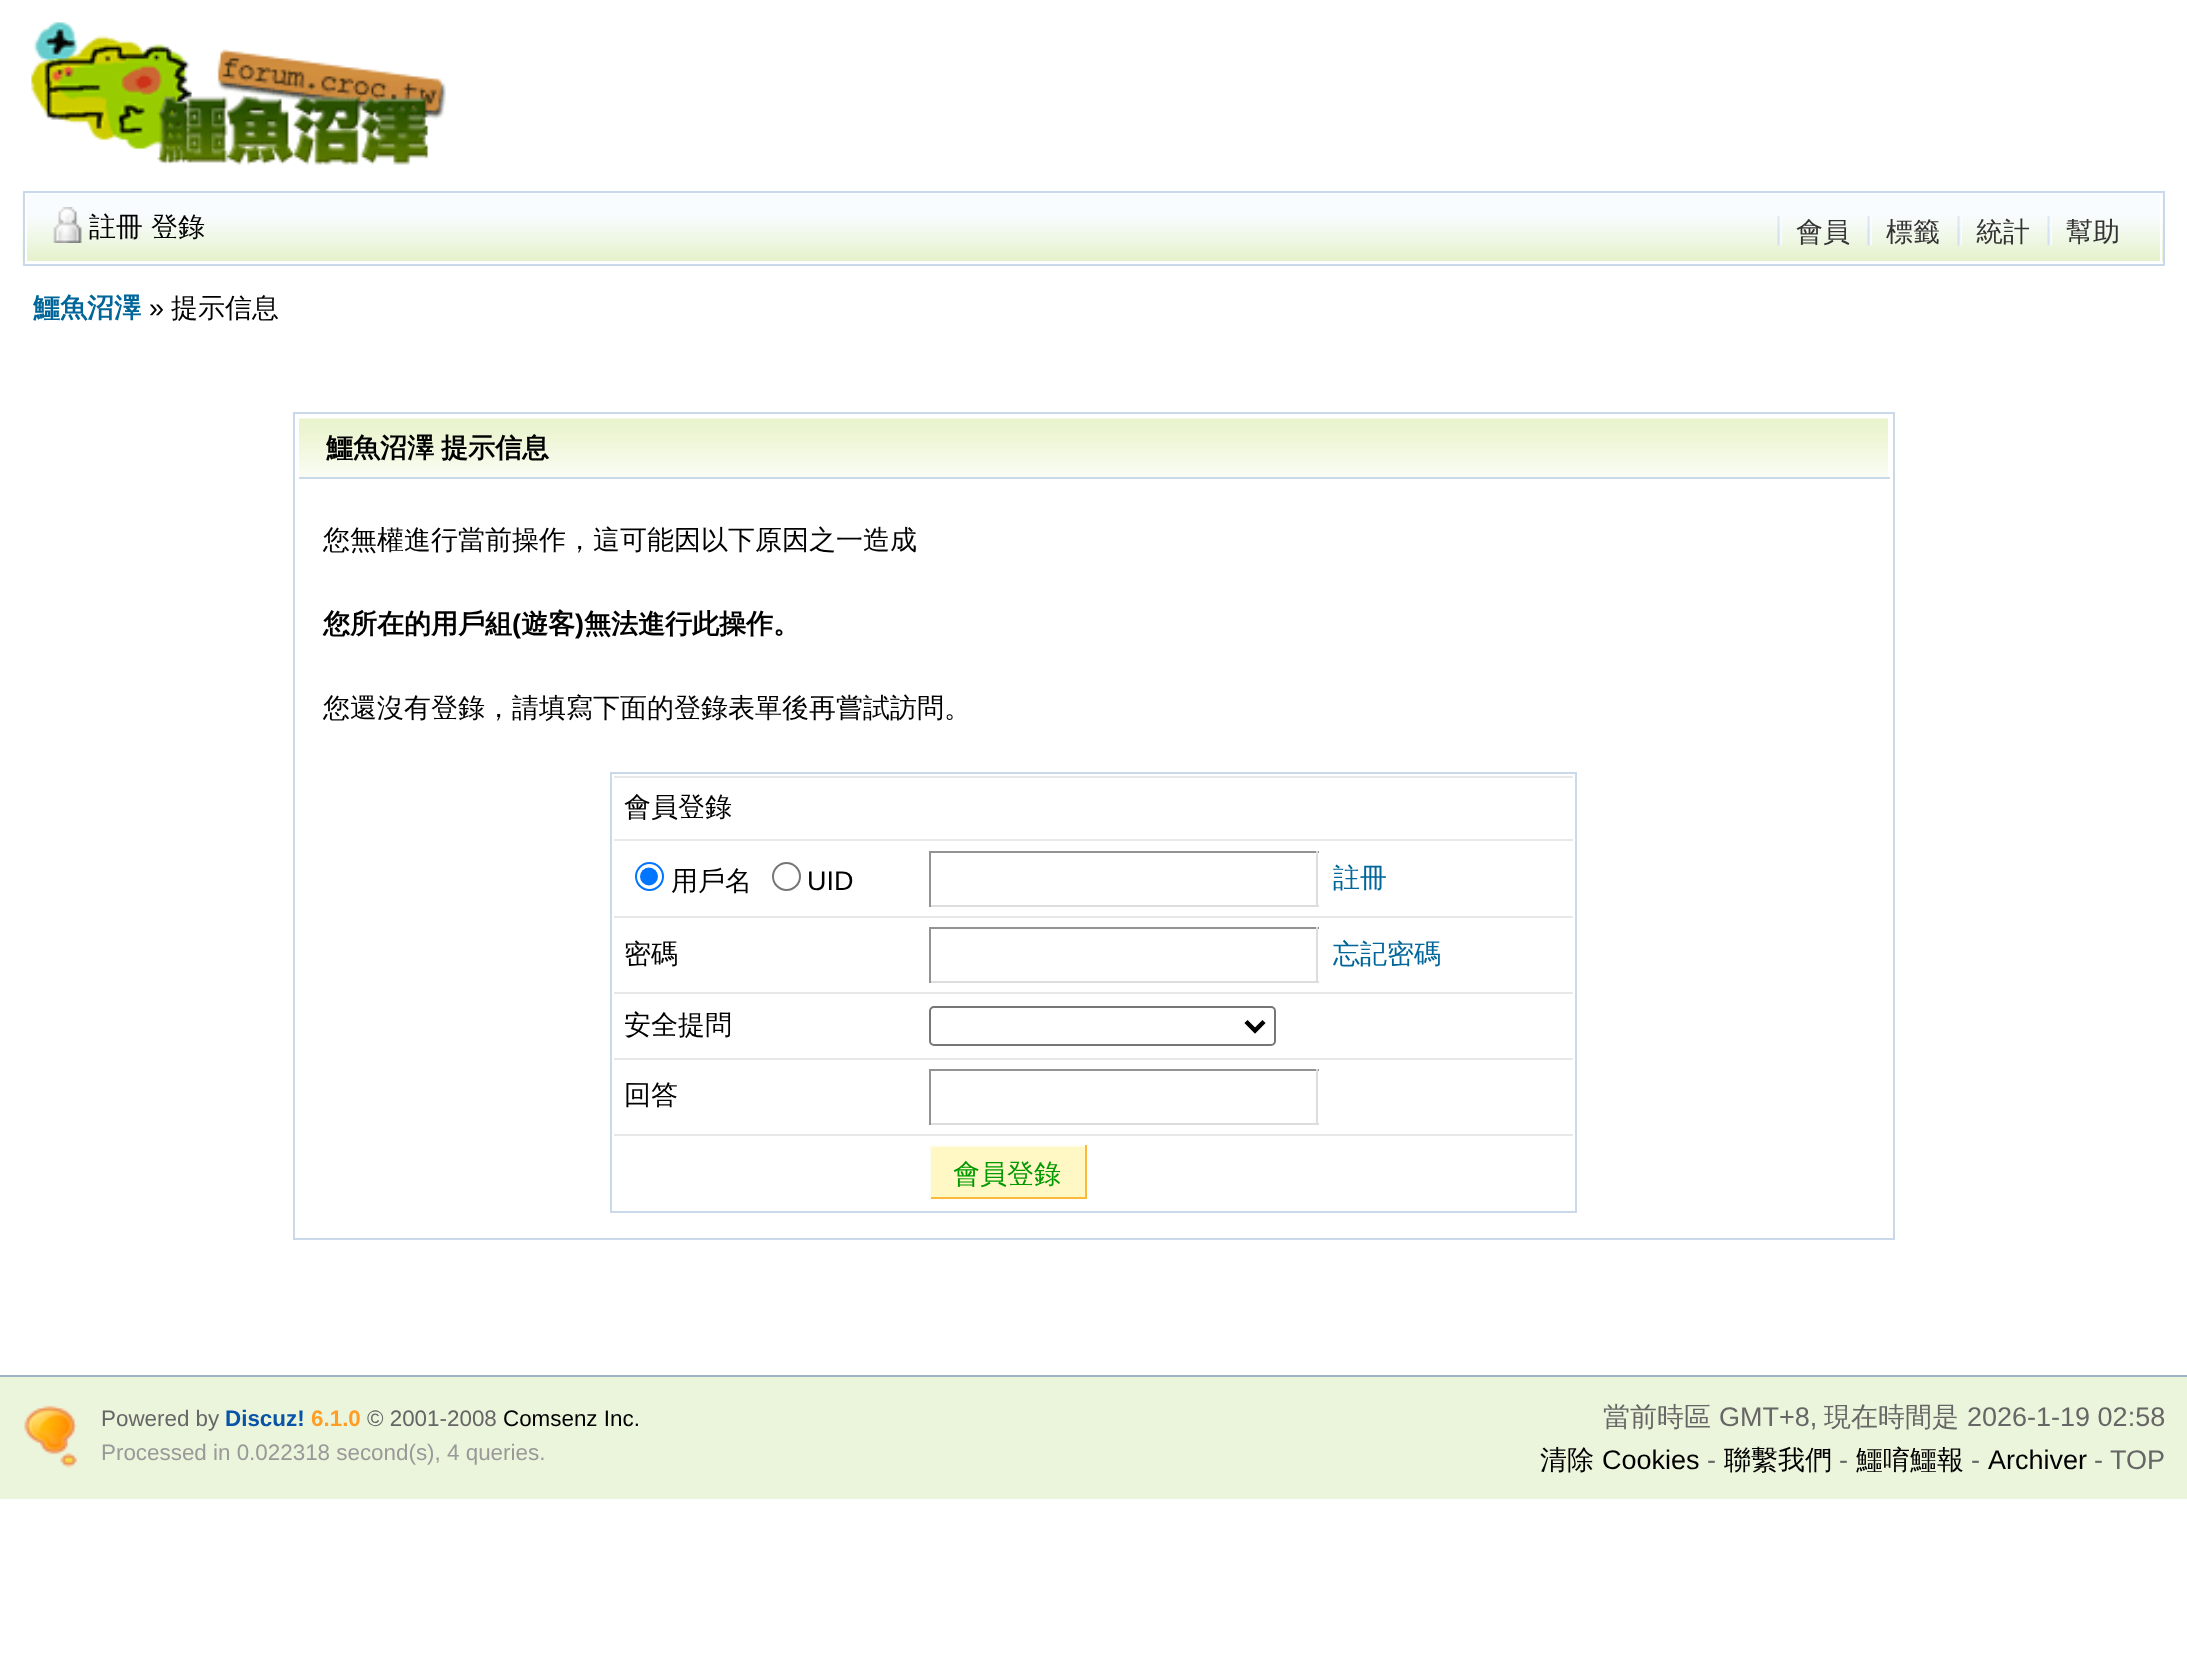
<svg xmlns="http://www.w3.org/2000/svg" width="2187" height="1677">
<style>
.a{font:500 27px WenQuanYi Zen Hei;fill:#000}
.b{font:500 27px WenQuanYi Zen Hei;fill:#333}
.c{font:bold 27px WenQuanYi Zen Hei;fill:#069}
.d{font:27px Liberation Sans;fill:#000}
.e{font:bold 27px WenQuanYi Zen Hei;fill:#000}
.f{font:bold 27px Liberation Sans;fill:#000}
.g{font:500 27px WenQuanYi Zen Hei;fill:#069}
.h{font:500 27px WenQuanYi Zen Hei;fill:#090}
.i{font:22.4px Liberation Sans;fill:#666}
.j{font:bold 22.4px Liberation Sans;fill:#0954a6}
.k{font:bold 22.4px Liberation Sans;fill:#ff9d25}
.l{font:22.4px Liberation Sans;fill:#000}
.m{font:500 27px WenQuanYi Zen Hei;fill:#666}
.n{font:27px Liberation Sans;fill:#666}
.o{font:22.4px Liberation Sans;fill:#999}
</style>
<rect width="100%" height="100%" fill="#fff"/>
<image href="1.png" x="31" y="22" width="415" height="143"/>
<image href="2.png" x="22" y="193" width="2141" height="68"/>
<path fill="none" stroke="#cad9ea" stroke-width="2" d="M24 192h2140v73H24z"/>
<image href="3.png" x="53" y="207" width="29" height="36"/>
<path fill="#fff" d="M25 194h2v67H25z"/>
<path fill="#fff" d="M2160 194h2v67H2160z"/>
<image href="4.png" x="1777" y="216" width="5" height="30"/>
<image href="4.png" x="1867" y="216" width="5" height="30"/>
<image href="4.png" x="1957" y="216" width="5" height="30"/>
<image href="4.png" x="2047" y="216" width="5" height="30"/>
<path fill="none" stroke="#cad9ea" stroke-width="2" d="M294 413h1600v826H294z"/>
<image href="5.png" x="299" y="418" width="1589" height="59"/>
<path fill="#cad9ea" d="M297 477h1593v2H297z"/>
<path fill="#fff" d="M297 477h2v2H297z"/>
<path fill="none" stroke="#cad9ea" stroke-width="2" d="M611 773h965v439H611z"/>
<path fill="#e8e8e8" d="M614 776h959v2H614z"/>
<circle fill="none" stroke="#0075ff" stroke-width="2" cx="649.5" cy="876.5" r="13.5"/>
<circle fill="#0075ff" cx="649" cy="876.5" r="9"/>
<circle fill="none" stroke="#767676" stroke-width="2" cx="786.5" cy="876.5" r="13.5"/>
<path fill="#e8e8e8" d="M614 839h959v2H614z"/>
<path fill="#939393" d="M929 851h390v2H929z"/>
<path fill="#ddd" d="M1316 851h2v56H1316z"/>
<path fill="#ddd" d="M929 905h390v2H929z"/>
<path fill="#939393" d="M929 851h2v56H929z"/>
<path fill="#e8e8e8" d="M614 916h959v2H614z"/>
<path fill="#939393" d="M929 927h390v2H929z"/>
<path fill="#ddd" d="M1316 927h2v56H1316z"/>
<path fill="#ddd" d="M929 981h390v2H929z"/>
<path fill="#939393" d="M929 927h2v56H929z"/>
<path fill="#e8e8e8" d="M614 992h959v2H614z"/>
<rect fill="none" stroke="#767676" stroke-width="2" x="930" y="1007" width="345" height="38" rx="4"/>
<path fill="none" stroke="#000" stroke-width="4.5" d="M1246 1021.5l9 9l9-9"/>
<path fill="#e8e8e8" d="M614 1058h959v2H614z"/>
<path fill="#939393" d="M929 1069h390v2H929z"/>
<path fill="#ddd" d="M1316 1069h2v56H1316z"/>
<path fill="#ddd" d="M929 1123h390v2H929z"/>
<path fill="#939393" d="M929 1069h2v56H929z"/>
<path fill="#e8e8e8" d="M614 1134h959v2H614z"/>
<path fill="#fff8c5" d="M931 1147h154v50H931z"/>
<path fill="#fffdee" d="M929 1145h158v2H929z"/>
<path fill="#fdb939" d="M1085 1145h2v54H1085z"/>
<path fill="#fdb939" d="M929 1197h158v2H929z"/>
<path fill="#fffdee" d="M929 1145h2v54H929z"/>
<path fill="#ebf5db" d="M0 1377h2187v122H0z"/>
<path fill="#9db3c5" d="M0 1375h2187v2H0z"/>
<image href="6.png" x="24" y="1405" width="54" height="63"/>
<text class="a" x="89" y="236">註冊</text>
<text class="a" x="151" y="236">登錄</text>
<text class="b" x="1796" y="241">會員</text>
<text class="b" x="1886" y="241">標籤</text>
<text class="b" x="1976" y="241">統計</text>
<text class="b" x="2066" y="241">幫助</text>
<text class="c" x="33" y="317">鱷魚沼澤</text>
<text class="d" x="149" y="317">»</text>
<text class="a" x="171" y="317">提示信息</text>
<text class="e" x="326" y="457" word-spacing="-1">鱷魚沼澤 提示信息</text>
<text class="a" x="323" y="549">您無權進行當前操作，這可能因以下原因之一造成</text>
<text class="e" x="323" y="633">您所在的用戶組</text>
<text class="f" x="512" y="633">(</text>
<text class="e" x="521" y="633">遊客</text>
<text class="f" x="575" y="633">)</text>
<text class="e" x="584" y="633">無法進行此操作。</text>
<text class="a" x="323" y="717">您還沒有登錄，請填寫下面的登錄表單後再嘗試訪問。</text>
<text class="a" x="624" y="816">會員登錄</text>
<text class="a" x="671" y="890">用戶名</text>
<text class="d" x="807" y="890">UID</text>
<text class="g" x="1333" y="887">註冊</text>
<text class="a" x="624" y="963">密碼</text>
<text class="g" x="1333" y="963">忘記密碼</text>
<text class="a" x="624" y="1034">安全提問</text>
<text class="a" x="624" y="1104">回答</text>
<text class="h" x="953" y="1183">會員登錄</text>
<text class="i" x="101" y="1426">Powered by</text>
<text class="j" x="225" y="1426">Discuz!</text>
<text class="k" x="311" y="1426">6.1.0</text>
<text class="i" x="367" y="1426">© 2001-2008</text>
<text class="l" x="503" y="1426">Comsenz Inc.</text>
<text class="m" x="1603" y="1426">當前時區</text>
<text class="n" x="1719" y="1426">GMT+8,</text>
<text class="m" x="1824" y="1426">現在時間是</text>
<text class="n" x="1967" y="1426">2026-1-19 02:58</text>
<text class="a" x="1540" y="1469">清除</text>
<text class="d" x="1602" y="1469">Cookies</text>
<text class="n" x="1707" y="1469">-</text>
<text class="a" x="1724" y="1469">聯繫我們</text>
<text class="n" x="1839" y="1469">-</text>
<text class="a" x="1856" y="1469">鱷唷鱷報</text>
<text class="n" x="1971" y="1469">-</text>
<text class="d" x="1988" y="1469">Archiver</text>
<text class="n" x="2094" y="1469">-</text>
<text class="n" x="2110" y="1469">TOP</text>
<text class="o" x="101" y="1460">Processed in 0.022318 second(s), 4 queries.</text>
</svg>
